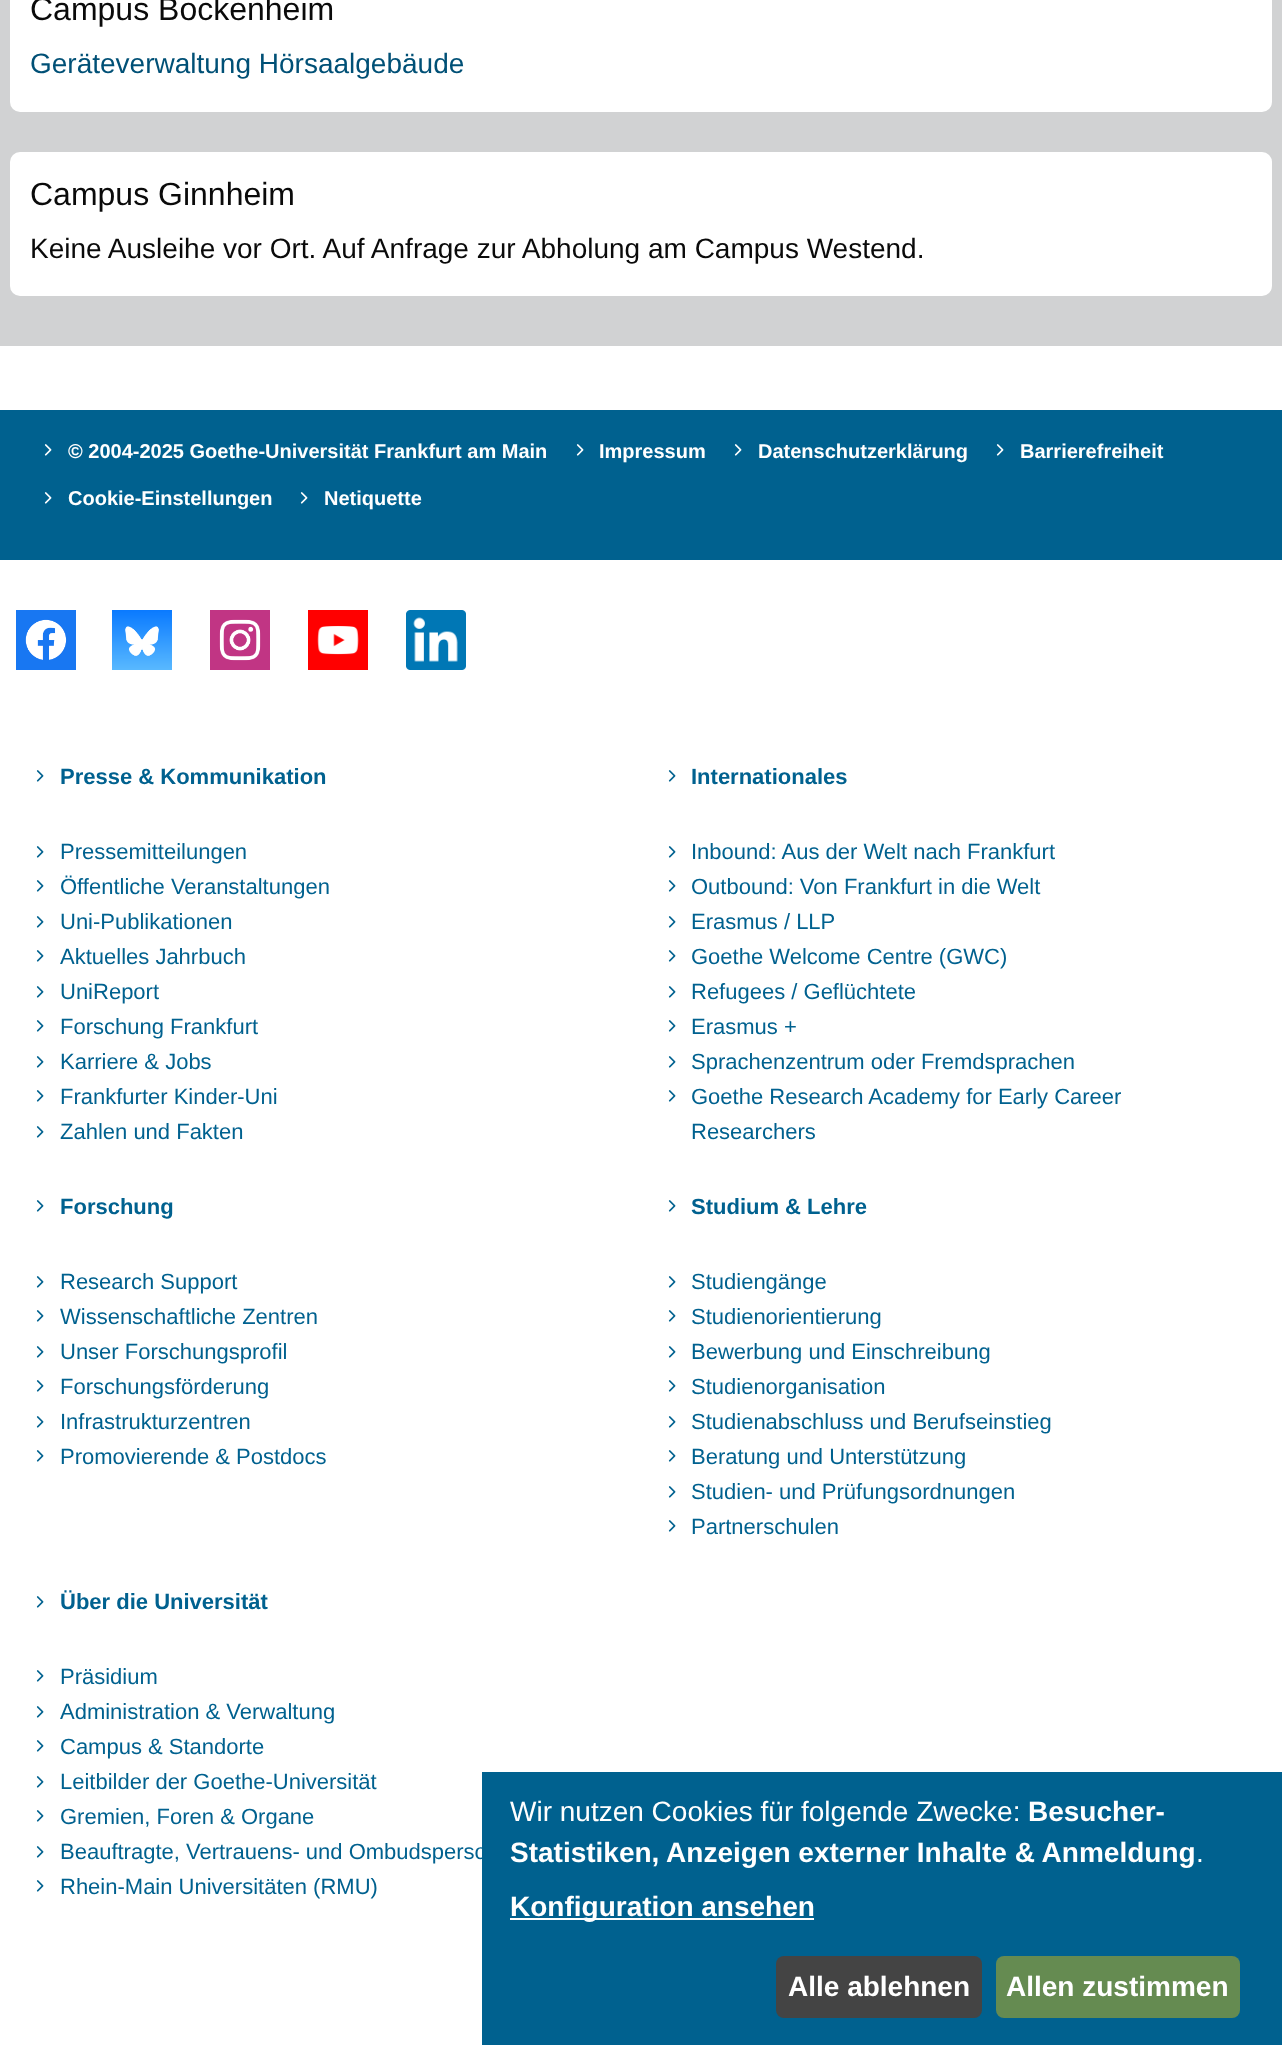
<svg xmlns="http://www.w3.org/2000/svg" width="1282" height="2045">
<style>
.a{font:32px Liberation Sans;fill:#0a0a0a}
.b{font:28px Liberation Sans;fill:#005076}
.c{font:28px Liberation Sans;fill:#0a0a0a}
.d{font:bold 20px Liberation Sans;fill:#fff}
.e{font:bold 22px Liberation Sans;fill:#00618f}
.f{font:22px Liberation Sans;fill:#00618f}
.g{font:28px Liberation Sans;fill:#fff}
.h{font:bold 28px Liberation Sans;fill:#fff}
</style>
<rect width="100%" height="100%" fill="#d1d2d3"/>
<rect fill="#fff" x="10" y="-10" width="1262" height="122" rx="10"/>
<rect fill="#fff" x="10" y="152" width="1262" height="144" rx="10"/>
<path fill="#fff" d="M0 560h1282v1485H0z"/>
<path fill="#00618f" d="M0 410h1282v150H0z"/>
<path fill="#fff" d="M0 346h1282v64H0z"/>
<image href="1.png" x="44" y="444" width="8" height="12"/>
<image href="1.png" x="576" y="444" width="8" height="12"/>
<image href="1.png" x="734" y="444" width="8" height="12"/>
<image href="1.png" x="996" y="444" width="8" height="12"/>
<image href="1.png" x="44" y="492" width="8" height="12"/>
<image href="1.png" x="300" y="492" width="8" height="12"/>
<image href="2.png" x="16" y="610" width="60" height="60"/>
<image href="3.png" x="112" y="610" width="60" height="60"/>
<image href="4.png" x="210" y="610" width="60" height="60"/>
<image href="5.png" x="308" y="610" width="60" height="60"/>
<image href="6.png" x="406" y="610" width="60" height="60"/>
<image href="7.png" x="36" y="770" width="8" height="12"/>
<image href="7.png" x="36" y="846" width="8" height="12"/>
<image href="7.png" x="36" y="880" width="8" height="12"/>
<image href="7.png" x="36" y="916" width="8" height="12"/>
<image href="7.png" x="36" y="950" width="8" height="12"/>
<image href="7.png" x="36" y="986" width="8" height="12"/>
<image href="7.png" x="36" y="1020" width="8" height="12"/>
<image href="7.png" x="36" y="1056" width="8" height="12"/>
<image href="7.png" x="36" y="1090" width="8" height="12"/>
<image href="7.png" x="36" y="1126" width="8" height="12"/>
<image href="7.png" x="668" y="770" width="8" height="12"/>
<image href="7.png" x="668" y="846" width="8" height="12"/>
<image href="7.png" x="668" y="880" width="8" height="12"/>
<image href="7.png" x="668" y="916" width="8" height="12"/>
<image href="7.png" x="668" y="950" width="8" height="12"/>
<image href="7.png" x="668" y="986" width="8" height="12"/>
<image href="7.png" x="668" y="1020" width="8" height="12"/>
<image href="7.png" x="668" y="1056" width="8" height="12"/>
<image href="7.png" x="668" y="1090" width="8" height="12"/>
<image href="7.png" x="36" y="1200" width="8" height="12"/>
<image href="7.png" x="36" y="1276" width="8" height="12"/>
<image href="7.png" x="36" y="1310" width="8" height="12"/>
<image href="7.png" x="36" y="1346" width="8" height="12"/>
<image href="7.png" x="36" y="1380" width="8" height="12"/>
<image href="7.png" x="36" y="1416" width="8" height="12"/>
<image href="7.png" x="36" y="1450" width="8" height="12"/>
<image href="7.png" x="668" y="1200" width="8" height="12"/>
<image href="7.png" x="668" y="1276" width="8" height="12"/>
<image href="7.png" x="668" y="1310" width="8" height="12"/>
<image href="7.png" x="668" y="1346" width="8" height="12"/>
<image href="7.png" x="668" y="1380" width="8" height="12"/>
<image href="7.png" x="668" y="1416" width="8" height="12"/>
<image href="7.png" x="668" y="1450" width="8" height="12"/>
<image href="7.png" x="668" y="1486" width="8" height="12"/>
<image href="7.png" x="668" y="1520" width="8" height="12"/>
<image href="7.png" x="36" y="1596" width="8" height="12"/>
<image href="7.png" x="36" y="1670" width="8" height="12"/>
<image href="7.png" x="36" y="1706" width="8" height="12"/>
<image href="7.png" x="36" y="1740" width="8" height="12"/>
<image href="7.png" x="36" y="1776" width="8" height="12"/>
<image href="7.png" x="36" y="1810" width="8" height="12"/>
<image href="7.png" x="36" y="1846" width="8" height="12"/>
<image href="7.png" x="36" y="1880" width="8" height="12"/>
<path fill="#00618f" d="M482 1772h800v273H482z"/>
<path fill="#fff" d="M510 1918h304v2H510z"/>
<rect fill="#444" x="776" y="1956" width="206" height="62" rx="8"/>
<rect fill="#658b51" x="996" y="1956" width="244" height="62" rx="8"/>
<text class="a" x="30" y="20">Campus Bockenheim</text>
<text class="b" x="30" y="73">Geräteverwaltung Hörsaalgebäude</text>
<text class="a" x="30" y="205">Campus Ginnheim</text>
<text class="c" x="30" y="258">Keine Ausleihe vor Ort. Auf Anfrage zur Abholung am Campus Westend.</text>
<text class="d" x="68" y="458">© 2004-2025 Goethe-Universität Frankfurt am Main</text>
<text class="d" x="599" y="458">Impressum</text>
<text class="d" x="758" y="458">Datenschutzerklärung</text>
<text class="d" x="1020" y="458">Barrierefreiheit</text>
<text class="d" x="68" y="505">Cookie-Einstellungen</text>
<text class="d" x="324" y="505">Netiquette</text>
<text class="e" x="60" y="784">Presse &amp; Kommunikation</text>
<text class="f" x="60" y="859">Pressemitteilungen</text>
<text class="f" x="60" y="894">Öffentliche Veranstaltungen</text>
<text class="f" x="60" y="929">Uni-Publikationen</text>
<text class="f" x="60" y="964">Aktuelles Jahrbuch</text>
<text class="f" x="60" y="999">UniReport</text>
<text class="f" x="60" y="1034">Forschung Frankfurt</text>
<text class="f" x="60" y="1069">Karriere &amp; Jobs</text>
<text class="f" x="60" y="1104">Frankfurter Kinder-Uni</text>
<text class="f" x="60" y="1139">Zahlen und Fakten</text>
<text class="e" x="691" y="784">Internationales</text>
<text class="f" x="691" y="859">Inbound: Aus der Welt nach Frankfurt</text>
<text class="f" x="691" y="894">Outbound: Von Frankfurt in die Welt</text>
<text class="f" x="691" y="929">Erasmus / LLP</text>
<text class="f" x="691" y="964">Goethe Welcome Centre (GWC)</text>
<text class="f" x="691" y="999">Refugees / Geflüchtete</text>
<text class="f" x="691" y="1034">Erasmus +</text>
<text class="f" x="691" y="1069">Sprachenzentrum oder Fremdsprachen</text>
<text class="f" x="691" y="1104">Goethe Research Academy for Early Career</text>
<text class="f" x="691" y="1139">Researchers</text>
<text class="e" x="60" y="1214">Forschung</text>
<text class="f" x="60" y="1289">Research Support</text>
<text class="f" x="60" y="1324">Wissenschaftliche Zentren</text>
<text class="f" x="60" y="1359">Unser Forschungsprofil</text>
<text class="f" x="60" y="1394">Forschungsförderung</text>
<text class="f" x="60" y="1429">Infrastrukturzentren</text>
<text class="f" x="60" y="1464">Promovierende &amp; Postdocs</text>
<text class="e" x="691" y="1214">Studium &amp; Lehre</text>
<text class="f" x="691" y="1289">Studiengänge</text>
<text class="f" x="691" y="1324">Studienorientierung</text>
<text class="f" x="691" y="1359">Bewerbung und Einschreibung</text>
<text class="f" x="691" y="1394">Studienorganisation</text>
<text class="f" x="691" y="1429">Studienabschluss und Berufseinstieg</text>
<text class="f" x="691" y="1464">Beratung und Unterstützung</text>
<text class="f" x="691" y="1499">Studien- und Prüfungsordnungen</text>
<text class="f" x="691" y="1534">Partnerschulen</text>
<text class="e" x="60" y="1609">Über die Universität</text>
<text class="f" x="60" y="1684">Präsidium</text>
<text class="f" x="60" y="1719">Administration &amp; Verwaltung</text>
<text class="f" x="60" y="1754">Campus &amp; Standorte</text>
<text class="f" x="60" y="1789">Leitbilder der Goethe-Universität</text>
<text class="f" x="60" y="1824">Gremien, Foren &amp; Organe</text>
<text class="f" x="60" y="1859">Beauftragte, Vertrauens- und Ombudsperso</text>
<text class="f" x="60" y="1894">Rhein-Main Universitäten (RMU)</text>
<text class="g" x="510" y="1821">Wir nutzen Cookies für folgende Zwecke:</text>
<text class="h" x="1028" y="1821">Besucher-</text>
<text class="h" x="510" y="1862">Statistiken, Anzeigen externer Inhalte &amp; Anmeldung</text>
<text class="g" x="1196" y="1862">.</text>
<text class="h" x="510" y="1916">Konfiguration ansehen</text>
<text class="h" x="788" y="1996">Alle ablehnen</text>
<text class="h" x="1006" y="1996">Allen zustimmen</text>
</svg>
